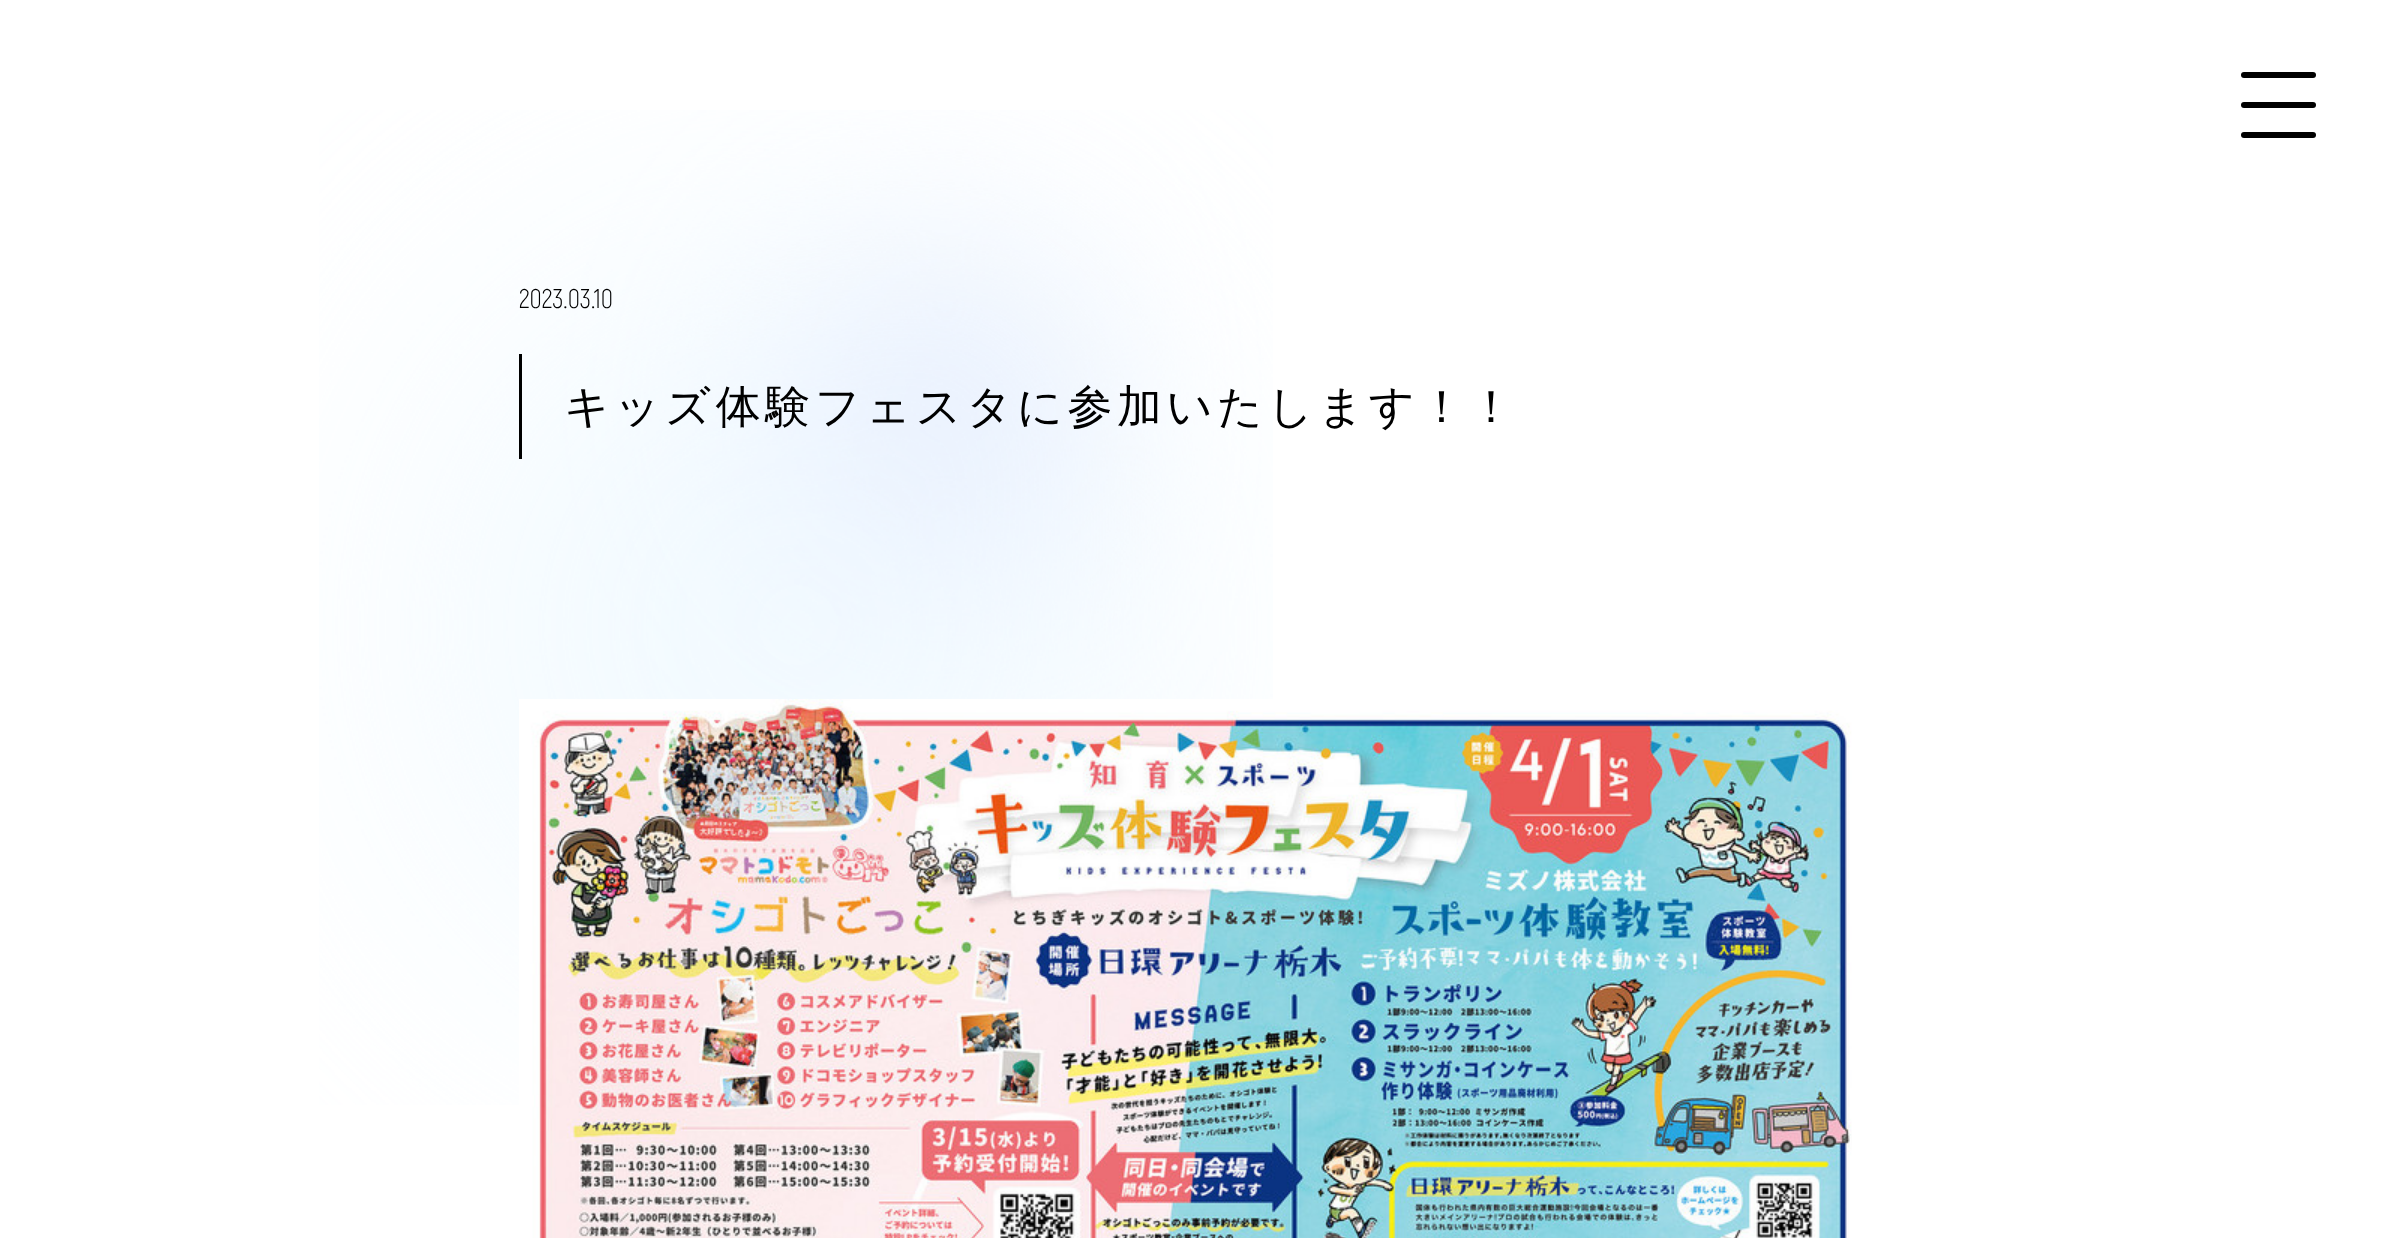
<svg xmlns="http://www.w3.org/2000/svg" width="2387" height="1238">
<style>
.a{font:300 27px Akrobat;fill:#000}
.b{font:500 45px WenQuanYi Zen Hei;letter-spacing:4.5px;fill:#000}
</style>
<rect width="100%" height="100%" fill="#fff"/>
<rect fill="#000" x="2241" y="72" width="75" height="6" rx="3"/>
<rect fill="#000" x="2241" y="102" width="75" height="6" rx="3"/>
<rect fill="#000" x="2241" y="132" width="75" height="6" rx="3"/>
<image href="1.png" x="319" y="110" width="954" height="995"/>
<path fill="#000" d="M519 354h3v105H519z"/>
<image href="2.png" x="519" y="699" width="1333" height="539"/>
<text class="a" x="519" y="308">2023.03.10</text>
<text class="b" x="564" y="422">キッズ体験フェスタに参加いたします！！</text>
</svg>
